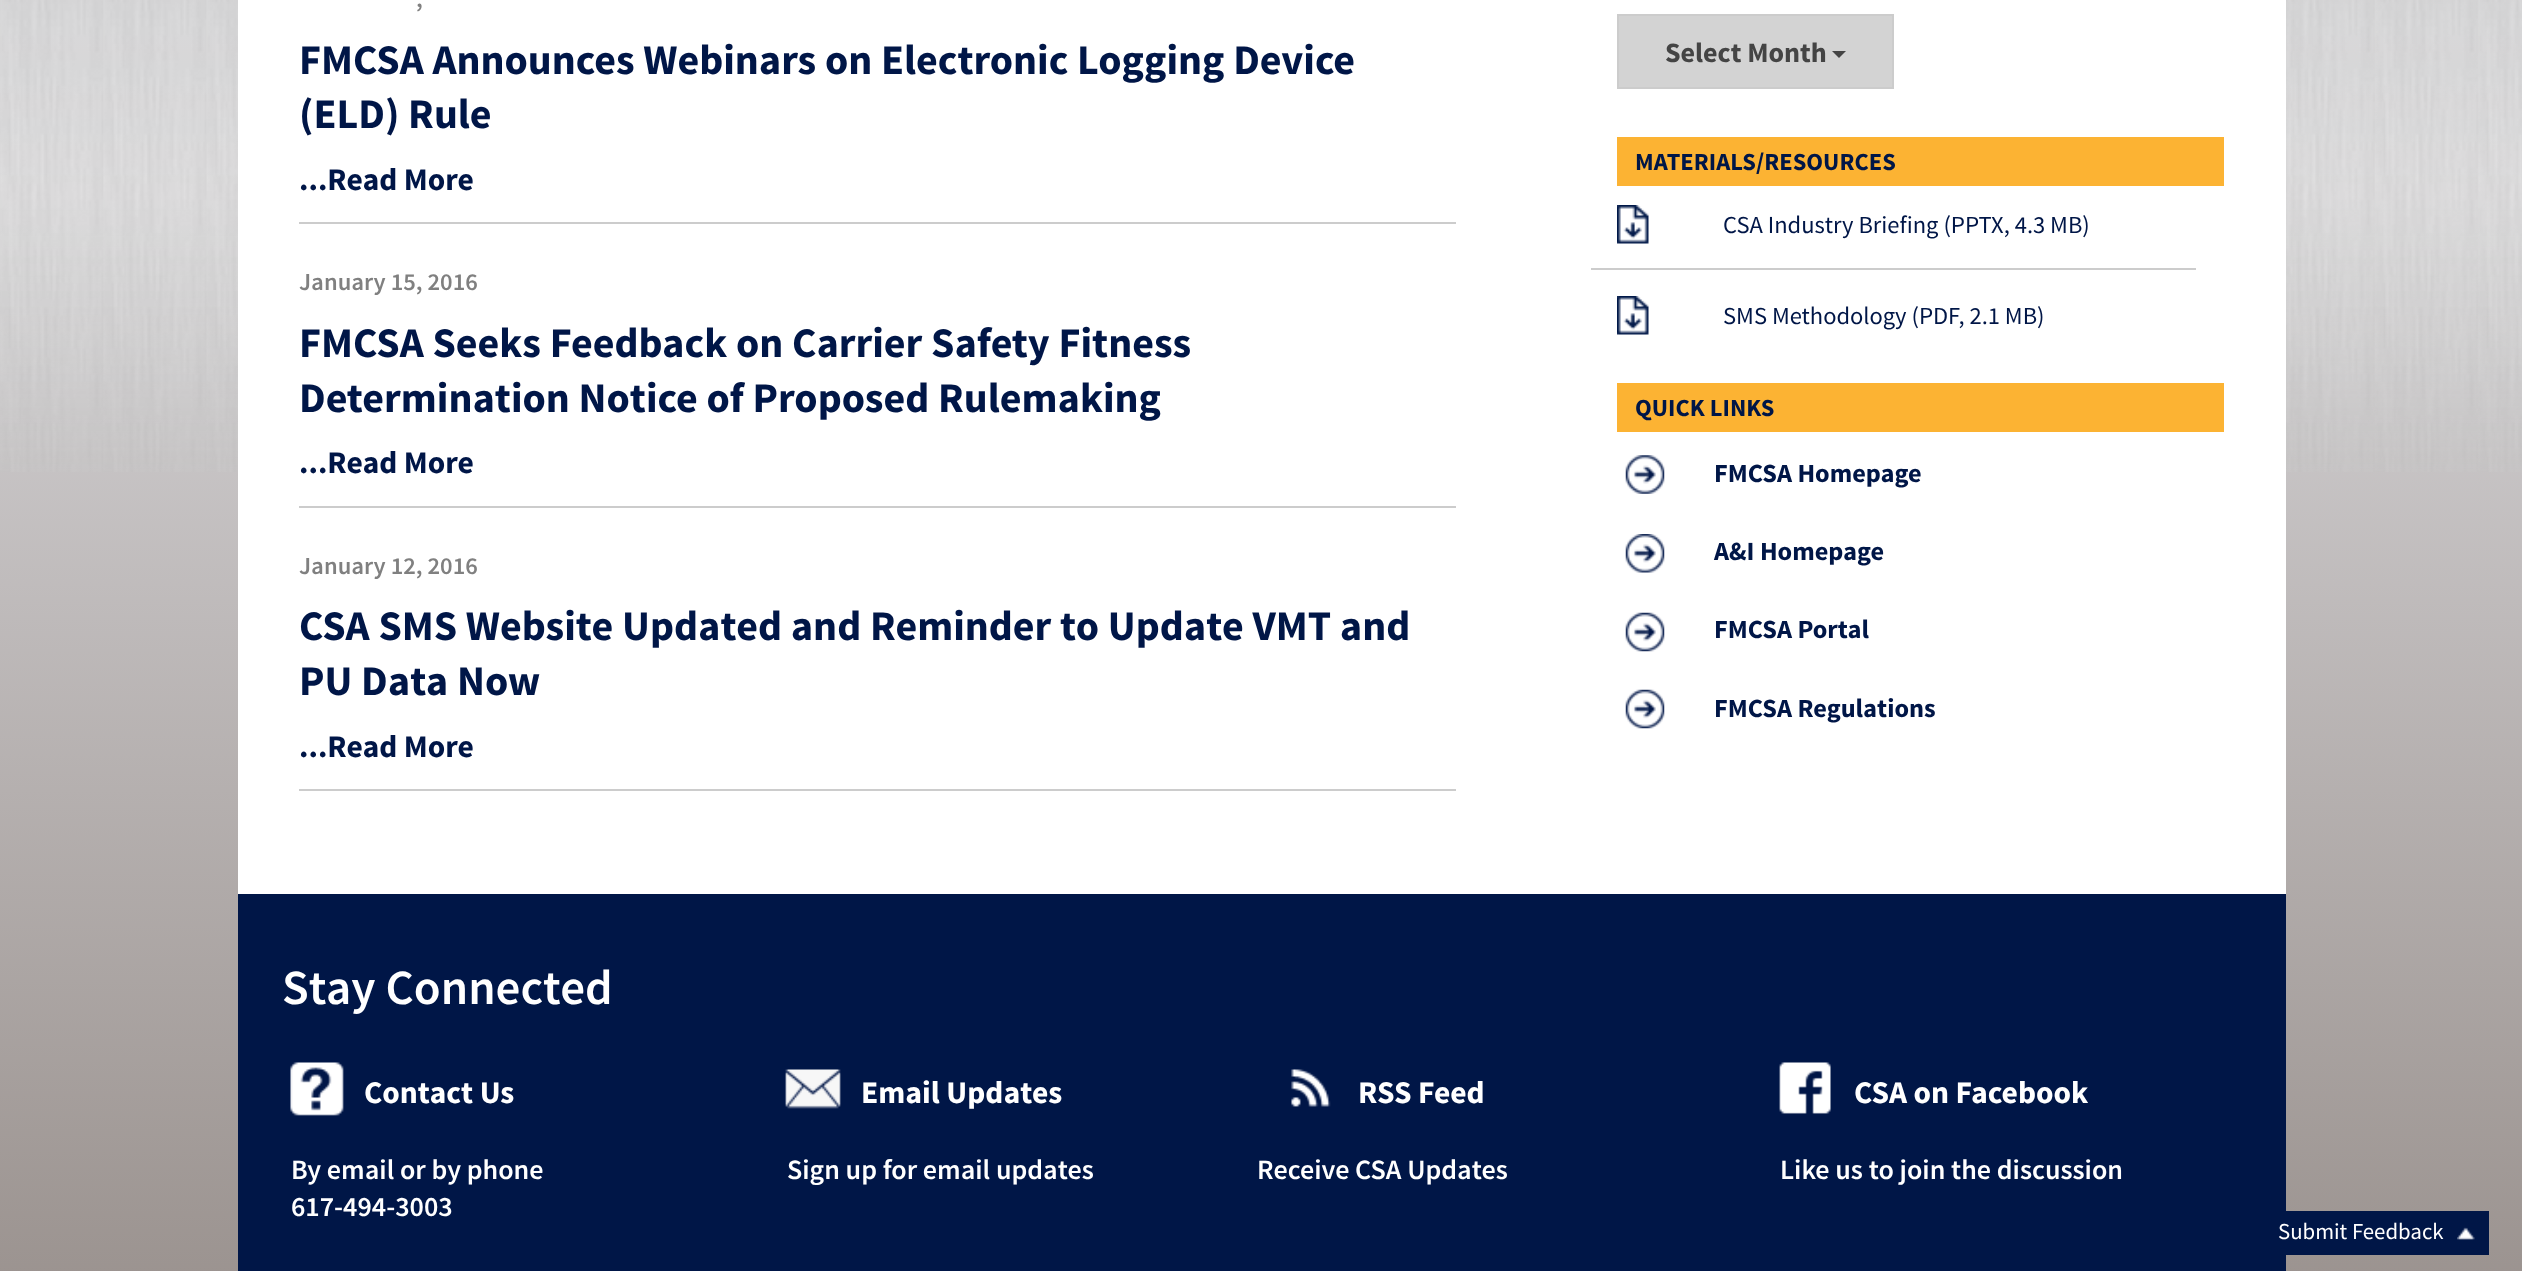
<svg xmlns="http://www.w3.org/2000/svg" width="2522" height="1271">
<style>
.a{font:600 24.5px Source Sans Pro;fill:#808080}
.b{font:bold 42px Source Sans Pro;fill:#001647}
.c{font:bold 31.5px Source Sans Pro;fill:#001647}
.d{font:bold 28px Source Sans Pro;fill:#444}
.e{font:bold 24.5px Source Sans Pro;fill:#001647}
.f{font:24.5px Source Sans Pro;fill:#001647}
.g{font:bold 26.25px Source Sans Pro;fill:#001647}
.h{font:600 49px Source Sans Pro;fill:#fff}
.i{font:bold 31.5px Source Sans Pro;fill:#fff}
.j{font:600 28px Source Sans Pro;fill:#fff}
.k{font:22.75px Source Sans Pro;fill:#fff}
</style>
<defs>
<linearGradient id="g1" gradientUnits="userSpaceOnUse" x1="1262" y1="-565" x2="1262" y2="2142"><stop offset="0.17" stop-color="#e4e4e8"/><stop offset="1" stop-color="#6e6159"/></linearGradient>
</defs>
<rect width="100%" height="100%" fill="#fff"/>
<path fill="url(#g1)" d="M0 0h2522v1271H0z"/>
<image href="1.png" x="0" y="0" width="2522" height="472"/>
<path fill="#fff" d="M238 0h2048v894H238z"/>
<path fill="#ccc" d="M299 222h1157v2H299z"/>
<path fill="#ccc" d="M299 506h1157v2H299z"/>
<path fill="#ccc" d="M299 789h1157v2H299z"/>
<path fill="#d3d3d3" stroke="#ccc" stroke-width="2" d="M1618 15h275v73H1618z"/>
<path fill="#444" d="M1832 51h14l-7 7z"/>
<path fill="#fcb333" d="M1617 137h607v49H1617z"/>
<image href="2.png" x="1617" y="205" width="32" height="39"/>
<path fill="#ccc" d="M1591 268h605v2H1591z"/>
<image href="2.png" x="1617" y="296" width="32" height="39"/>
<path fill="#fcb333" d="M1617 383h607v49H1617z"/>
<image href="3.png" x="1625" y="455" width="40" height="39"/>
<image href="4.png" x="1625" y="534" width="40" height="39"/>
<image href="5.png" x="1625" y="612" width="40" height="40"/>
<image href="5.png" x="1625" y="689" width="40" height="40"/>
<path fill="#001647" d="M238 894h2048v377H238z"/>
<image href="6.png" x="290" y="1062" width="54" height="54"/>
<image href="7.png" x="785" y="1069" width="56" height="40"/>
<image href="8.png" x="1291" y="1069" width="40" height="38"/>
<image href="9.png" x="1779" y="1062" width="52" height="52"/>
<path fill="#001647" d="M2286 1211h203v44H2286z"/>
<image href="10.png" x="2457" y="1227" width="18" height="13"/>
<text class="a" x="416" y="7">,</text>
<text class="b" x="299" y="74">FMCSA Announces Webinars on Electronic Logging Device</text>
<text class="b" x="299" y="128">(ELD) Rule</text>
<text class="c" x="299" y="190">...Read More</text>
<text class="a" x="299" y="290">January 15, 2016</text>
<text class="b" x="299" y="357">FMCSA Seeks Feedback on Carrier Safety Fitness</text>
<text class="b" x="299" y="412">Determination Notice of Proposed Rulemaking</text>
<text class="c" x="299" y="473">...Read More</text>
<text class="a" x="299" y="574">January 12, 2016</text>
<text class="b" x="299" y="640">CSA SMS Website Updated and Reminder to Update VMT and</text>
<text class="b" x="299" y="695">PU Data Now</text>
<text class="c" x="299" y="757">...Read More</text>
<text class="d" x="1665" y="62">Select Month</text>
<text class="e" x="1635" y="170">MATERIALS/RESOURCES</text>
<text class="f" x="1723" y="233">CSA Industry Briefing (PPTX, 4.3 MB)</text>
<text class="f" x="1723" y="324">SMS Methodology (PDF, 2.1 MB)</text>
<text class="e" x="1635" y="416">QUICK LINKS</text>
<text class="g" x="1714" y="482">FMCSA Homepage</text>
<text class="g" x="1714" y="560">A&amp;I Homepage</text>
<text class="g" x="1714" y="638">FMCSA Portal</text>
<text class="g" x="1714" y="717">FMCSA Regulations</text>
<text class="h" x="282" y="1004">Stay Connected</text>
<text class="i" x="364" y="1103">Contact Us</text>
<text class="j" x="291" y="1179">By email or by phone</text>
<text class="j" x="291" y="1216">617-494-3003</text>
<text class="i" x="861" y="1103">Email Updates</text>
<text class="j" x="787" y="1179">Sign up for email updates</text>
<text class="i" x="1358" y="1103">RSS Feed</text>
<text class="j" x="1257" y="1179">Receive CSA Updates</text>
<text class="i" x="1854" y="1103">CSA on Facebook</text>
<text class="j" x="1780" y="1179">Like us to join the discussion</text>
<text class="k" x="2278" y="1239">Submit Feedback</text>
</svg>
